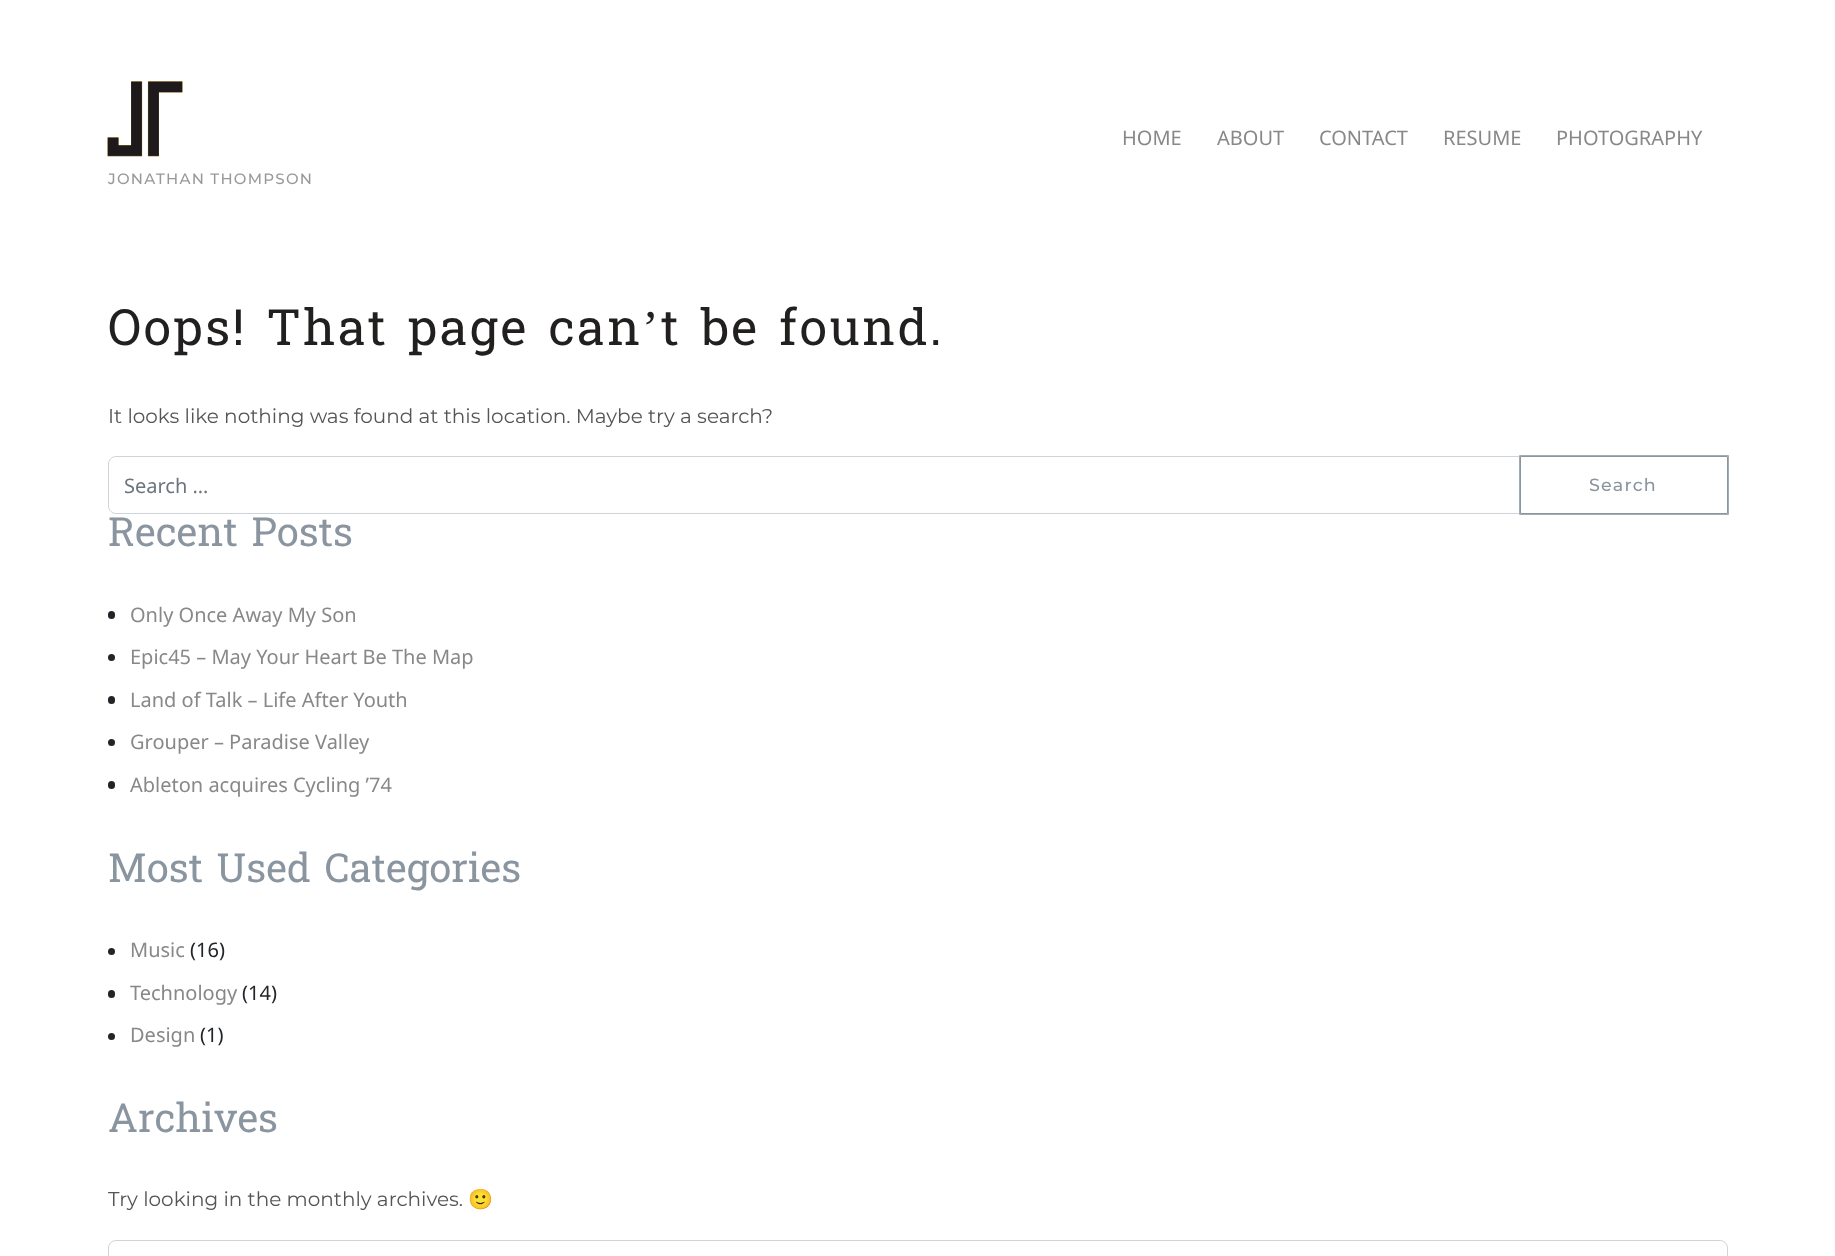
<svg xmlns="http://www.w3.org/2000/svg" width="1835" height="1256">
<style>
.a{font:20px Noto Sans;fill:#888}
.b{font:500 15px Montserrat;letter-spacing:1.25px;fill:#999}
.c{font:50px Hanuman;letter-spacing:2.5px;fill:#221f1f}
.d{font:50px Liberation Serif;letter-spacing:2.5px;fill:#221f1f}
.e{font:20px Montserrat;fill:#585454}
.f{font:20px Noto Sans;fill:#6c757d}
.g{font:500 17.5px Montserrat;letter-spacing:1.25px;fill:#8a95a0}
.h{font:40px Hanuman;fill:#8a95a0}
.i{font:20px Noto Sans;fill:#212529}
.j{font:20px Noto Color Emoji;fill:#585454}
</style>
<rect width="100%" height="100%" fill="#fff"/>
<image href="1.png" x="107" y="81" width="76" height="76"/>
<image href="2.png" x="107" y="81" width="76" height="76"/>
<path fill="none" stroke="#ced4da" d="M116 456.5h1404.5v57h-1404.5c-4 0-7.5-3.5-7.5-7.5v-42c0-4 3.5-7.5 7.5-7.5z"/>
<path fill="none" stroke="#8a95a0" d="M1520.5 456.5h207v57H1520.5z"/>
<path fill="none" stroke="#a1adb5" d="M1519.5 455.5h209v59H1519.5z"/>
<rect fill="#212529" x="108" y="611" width="7" height="8" rx="3.5"/>
<circle fill="#212529" cx="111.5" cy="657.5" r="3.5"/>
<rect fill="#212529" x="108" y="696" width="7" height="8" rx="3.5"/>
<circle fill="#212529" cx="111.5" cy="742.5" r="3.5"/>
<rect fill="#212529" x="108" y="781" width="7" height="8" rx="3.5"/>
<circle fill="#212529" cx="111.5" cy="951.5" r="3.5"/>
<rect fill="#212529" x="108" y="990" width="7" height="8" rx="3.5"/>
<circle fill="#212529" cx="111.5" cy="1036.5" r="3.5"/>
<rect fill="none" stroke="#ced4da" x="108.5" y="1240.5" width="1619" height="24" rx="7.5"/>
<text class="a" x="1122" y="145">HOME</text>
<text class="a" x="1217" y="145">ABOUT</text>
<text class="a" x="1319" y="145">CONTACT</text>
<text class="a" x="1443" y="145">RESUME</text>
<text class="a" x="1556" y="145">PHOTOGRAPHY</text>
<text class="b" x="108" y="184">JONATHAN THOMPSON</text>
<text class="c" x="108" y="345">Oops! That page can</text>
<text class="d" x="642" y="345">’</text>
<text class="c" x="661" y="345">t be found.</text>
<text class="e" x="108" y="423">It looks like nothing was found at this location. Maybe try a search?</text>
<text class="f" x="124" y="493">Search …</text>
<text class="g" x="1589" y="491">Search</text>
<text class="h" x="108" y="546">Recent Posts</text>
<text class="a" x="130" y="622">Only Once Away My Son</text>
<text class="a" x="130" y="664">Epic45 – May Your Heart Be The Map</text>
<text class="a" x="130" y="707">Land of Talk – Life After Youth</text>
<text class="a" x="130" y="749">Grouper – Paradise Valley</text>
<text class="a" x="130" y="792">Ableton acquires Cycling ’74</text>
<text class="h" x="108" y="882">Most Used Categories</text>
<text class="a" x="130" y="957">Music</text>
<text class="i" x="190" y="957">(16)</text>
<text class="a" x="130" y="1000">Technology</text>
<text class="i" x="242" y="1000">(14)</text>
<text class="a" x="130" y="1042">Design</text>
<text class="i" x="200" y="1042">(1)</text>
<text class="h" x="108" y="1132">Archives</text>
<text class="e" x="108" y="1206">Try looking in the monthly archives.</text>
<text class="j" x="468" y="1206">🙂</text>
</svg>
